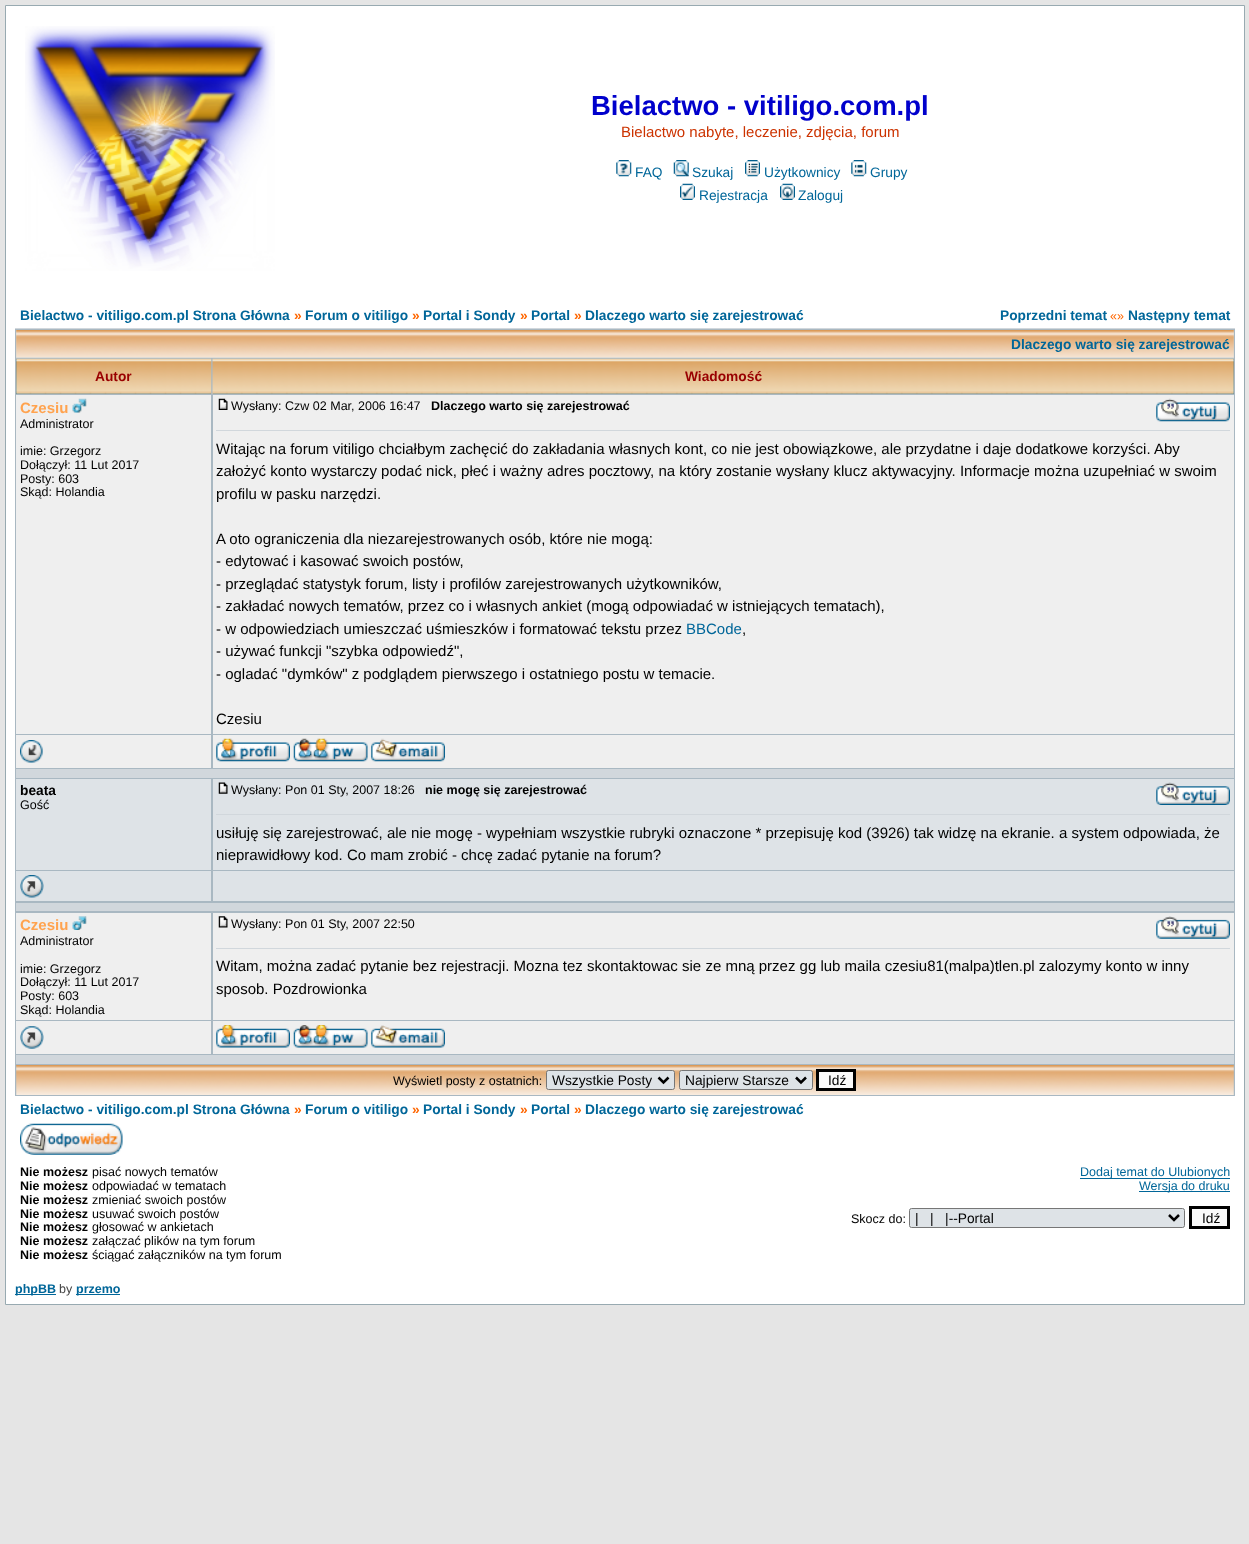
<svg xmlns="http://www.w3.org/2000/svg" width="1249" height="1544">
<style>
.a{font:bold 27.5px Liberation Sans;fill:#00c}
.b{font:15px Liberation Sans;fill:#c30}
.c{font:13.75px Liberation Sans;fill:#069}
.d{font:bold 13.75px Liberation Sans;fill:#069}
.e{font:bold 13.75px Liberation Sans;fill:#f60}
.f{font:12.5px Liberation Sans;fill:#f60}
.g{font:bold 13.75px Liberation Sans;fill:#900}
.h{font:bold 15px Liberation Sans;fill:#ffa34f}
.i{font:12.5px Liberation Sans;fill:#000}
.j{font:bold 12.5px Liberation Sans;fill:#000}
.k{font:15px Liberation Sans;fill:#000}
.l{font:15px Liberation Sans;fill:#069}
.m{font:bold 13.75px Liberation Sans;fill:#000}
.n{font:13.75px Liberation Sans;fill:#000}
.o{font:12.5px Liberation Sans;fill:#069}
.p{font:bold 12.5px Liberation Sans;fill:#069}
.q{font:12.5px Liberation Sans;fill:#444}
</style>
<rect width="100%" height="100%" fill="#e5e5e5"/>
<path fill="#fff" stroke="#98aab1" d="M5.5 5.5h1239v1299H5.5z"/>
<image href="1.png" x="25" y="26" width="250" height="245"/>
<image href="2.png" x="616" y="160" width="16" height="17"/>
<image href="3.png" x="673" y="160" width="16" height="17"/>
<image href="4.png" x="745" y="160" width="15" height="17"/>
<image href="5.png" x="851" y="160" width="16" height="17"/>
<image href="6.png" x="680" y="183" width="15" height="17"/>
<image href="7.png" x="780" y="183" width="15" height="17"/>
<path fill="#a9b8c2" d="M15 329h1220v767H15z"/>
<path fill="#d1d7dc" d="M15 328h1220v1H15z"/>
<path fill="#c7d0d7" d="M16 330h1218v28H16z"/>
<image href="8.png" x="16" y="330" width="1218" height="28"/>
<path fill="#069" d="M16 359h195v35H16z"/>
<image href="9.png" x="16" y="358" width="196" height="36"/>
<path fill="#069" d="M213 359h1021v35H213z"/>
<image href="10.png" x="212" y="358" width="1022" height="36"/>
<path fill="#efefef" d="M16 395h195v339H16z"/>
<image href="11.png" x="72" y="398" width="15" height="15"/>
<path fill="#efefef" d="M213 395h1021v339H213z"/>
<image href="12.png" x="218" y="398" width="10" height="12"/>
<image href="13.png" x="1156" y="398" width="74" height="24"/>
<path fill="#d1d7dc" d="M216 430h1014v1H216z"/>
<path fill="#efefef" d="M16 735h195v33H16z"/>
<image href="14.png" x="20" y="740" width="23" height="23"/>
<path fill="#efefef" d="M213 735h1021v33H213z"/>
<image href="15.png" x="216" y="738" width="74" height="24"/>
<image href="16.png" x="293" y="738" width="75" height="24"/>
<image href="17.png" x="371" y="738" width="74" height="24"/>
<path fill="#d1d7dc" d="M16 769h1218v9H16z"/>
<path fill="#dee3e7" d="M16 779h195v91H16z"/>
<path fill="#dee3e7" d="M213 779h1021v91H213z"/>
<image href="18.png" x="218" y="782" width="10" height="12"/>
<image href="19.png" x="1156" y="782" width="74" height="23"/>
<path fill="#d1d7dc" d="M216 814h1014v1H216z"/>
<path fill="#dee3e7" d="M16 871h195v30H16z"/>
<image href="20.png" x="20" y="875" width="24" height="23"/>
<path fill="#dee3e7" d="M213 871h1021v30H213z"/>
<path fill="#d1d7dc" d="M16 903h1218v8H16z"/>
<path fill="#efefef" d="M16 913h195v107H16z"/>
<image href="21.png" x="72" y="916" width="15" height="14"/>
<path fill="#efefef" d="M213 913h1021v107H213z"/>
<image href="22.png" x="218" y="916" width="10" height="12"/>
<image href="23.png" x="1156" y="916" width="74" height="23"/>
<path fill="#d1d7dc" d="M216 948h1014v1H216z"/>
<path fill="#efefef" d="M16 1021h195v33H16z"/>
<image href="24.png" x="20" y="1026" width="24" height="23"/>
<path fill="#efefef" d="M213 1021h1021v33H213z"/>
<image href="25.png" x="216" y="1025" width="74" height="23"/>
<image href="26.png" x="293" y="1025" width="75" height="23"/>
<image href="27.png" x="371" y="1025" width="74" height="23"/>
<path fill="#d1d7dc" d="M16 1055h1218v9H16z"/>
<image href="28.png" x="16" y="1065" width="1218" height="30"/>
<rect fill="#dee3e7" stroke="#767676" x="546.5" y="1070.5" width="128" height="19" rx="2"/>
<path fill="none" stroke="#000" stroke-width="2.5" d="M658.5 1077.5l5 5l5-5"/>
<rect fill="#dee3e7" stroke="#767676" x="679.5" y="1070.5" width="133" height="19" rx="2"/>
<path fill="none" stroke="#000" stroke-width="2.5" d="M796 1077.5l5 5l5-5"/>
<path fill="#fafafa" stroke="#000" stroke-width="3" d="M817.5 1070.5h37v19H817.5z"/>
<image href="29.png" x="20" y="1123" width="103" height="32"/>
<path fill="#069" d="M1080 1178h150v1H1080z"/>
<path fill="#069" d="M1139 1191h91v1H1139z"/>
<rect fill="#dee3e7" stroke="#767676" x="909.5" y="1208.5" width="275" height="19" rx="2"/>
<path fill="none" stroke="#000" stroke-width="2.5" d="M1169 1215l5 5l5-5"/>
<path fill="#fafafa" stroke="#000" stroke-width="3" d="M1190.5 1207.5h38v20H1190.5z"/>
<path fill="#069" d="M15 1294h41v1H15z"/>
<path fill="#069" d="M76 1294h44v1H76z"/>
<text class="a" x="591" y="115">Bielactwo - vitiligo.com.pl</text>
<text class="b" x="621" y="137">Bielactwo nabyte, leczenie, zdjęcia, forum</text>
<text class="c" x="635" y="177">FAQ</text>
<text class="c" x="692" y="177">Szukaj</text>
<text class="c" x="764" y="177">Użytkownicy</text>
<text class="c" x="870" y="177">Grupy</text>
<text class="c" x="699" y="200">Rejestracja</text>
<text class="c" x="798" y="200">Zaloguj</text>
<text class="d" x="20" y="320">Bielactwo - vitiligo.com.pl Strona Główna</text>
<text class="e" x="294" y="320">»</text>
<text class="d" x="305" y="320">Forum o vitiligo</text>
<text class="e" x="412" y="320">»</text>
<text class="d" x="423" y="320">Portal i Sondy</text>
<text class="e" x="520" y="320">»</text>
<text class="d" x="531" y="320">Portal</text>
<text class="e" x="574" y="320">»</text>
<text class="d" x="585" y="320">Dlaczego warto się zarejestrować</text>
<text class="d" x="1000" y="320">Poprzedni temat</text>
<text class="f" x="1110" y="320">«»</text>
<text class="d" x="1128" y="320">Następny temat</text>
<text class="d" x="1011" y="349">Dlaczego warto się zarejestrować</text>
<text class="g" x="95" y="381">Autor</text>
<text class="g" x="685" y="381">Wiadomość</text>
<text class="h" x="20" y="413">Czesiu</text>
<text class="i" x="20" y="428">Administrator</text>
<text class="i" x="20" y="455">imie: Grzegorz</text>
<text class="i" x="20" y="469">Dołączył: 11 Lut 2017</text>
<text class="i" x="20" y="483">Posty: 603</text>
<text class="i" x="20" y="496">Skąd: Holandia</text>
<text class="i" x="231" y="410">Wysłany: Czw 02 Mar, 2006 16:47</text>
<text class="j" x="431" y="410">Dlaczego warto się zarejestrować</text>
<text class="k" x="216" y="454">Witając na forum vitiligo chciałbym zachęcić do zakładania własnych kont, co nie jest obowiązkowe, ale przydatne i daje dodatkowe korzyści. Aby</text>
<text class="k" x="216" y="476">założyć konto wystarczy podać nick, płeć i ważny adres pocztowy, na który zostanie wysłany klucz aktywacyjny. Informacje można uzupełniać w swoim</text>
<text class="k" x="216" y="499">profilu w pasku narzędzi.</text>
<text class="k" x="216" y="544">A oto ograniczenia dla niezarejestrowanych osób, które nie mogą:</text>
<text class="k" x="216" y="566">- edytować i kasować swoich postów,</text>
<text class="k" x="216" y="589">- przeglądać statystyk forum, listy i profilów zarejestrowanych użytkowników,</text>
<text class="k" x="216" y="611">- zakładać nowych tematów, przez co i własnych ankiet (mogą odpowiadać w istniejących tematach),</text>
<text class="k" x="216" y="634">- w odpowiedziach umieszczać uśmieszków i formatować tekstu przez</text>
<text class="l" x="686" y="634">BBCode</text>
<text class="k" x="742" y="634">,</text>
<text class="k" x="216" y="656">- używać funkcji "szybka odpowiedź",</text>
<text class="k" x="216" y="679">- ogladać "dymków" z podglądem pierwszego i ostatniego postu w temacie.</text>
<text class="k" x="216" y="724">Czesiu</text>
<text class="m" x="20" y="795">beata</text>
<text class="i" x="20" y="809">Gość</text>
<text class="i" x="231" y="794">Wysłany: Pon 01 Sty, 2007 18:26</text>
<text class="j" x="425" y="794">nie mogę się zarejestrować</text>
<text class="k" x="216" y="838">usiłuję się zarejestrować, ale nie mogę - wypełniam wszystkie rubryki oznaczone * przepisuję kod (3926) tak widzę na ekranie. a system odpowiada, że</text>
<text class="k" x="216" y="860">nieprawidłowy kod. Co mam zrobić - chcę zadać pytanie na forum?</text>
<text class="h" x="20" y="930">Czesiu</text>
<text class="i" x="20" y="945">Administrator</text>
<text class="i" x="20" y="973">imie: Grzegorz</text>
<text class="i" x="20" y="986">Dołączył: 11 Lut 2017</text>
<text class="i" x="20" y="1000">Posty: 603</text>
<text class="i" x="20" y="1014">Skąd: Holandia</text>
<text class="i" x="231" y="928">Wysłany: Pon 01 Sty, 2007 22:50</text>
<text class="k" x="216" y="971">Witam, można zadać pytanie bez rejestracji. Mozna tez skontaktowac sie ze mną przez gg lub maila czesiu81(malpa)tlen.pl zalozymy konto w inny</text>
<text class="k" x="216" y="994">sposob. Pozdrowionka</text>
<text class="i" x="393" y="1085">Wyświetl posty z ostatnich:</text>
<text class="n" x="552" y="1085">Wszystkie Posty</text>
<text class="n" x="685" y="1085">Najpierw Starsze</text>
<text class="n" x="828" y="1085">Idź</text>
<text class="d" x="20" y="1114">Bielactwo - vitiligo.com.pl Strona Główna</text>
<text class="e" x="294" y="1114">»</text>
<text class="d" x="305" y="1114">Forum o vitiligo</text>
<text class="e" x="412" y="1114">»</text>
<text class="d" x="423" y="1114">Portal i Sondy</text>
<text class="e" x="520" y="1114">»</text>
<text class="d" x="531" y="1114">Portal</text>
<text class="e" x="574" y="1114">»</text>
<text class="d" x="585" y="1114">Dlaczego warto się zarejestrować</text>
<text class="j" x="20" y="1176">Nie możesz</text>
<text class="i" x="92" y="1176">pisać nowych tematów</text>
<text class="j" x="20" y="1190">Nie możesz</text>
<text class="i" x="92" y="1190">odpowiadać w tematach</text>
<text class="j" x="20" y="1204">Nie możesz</text>
<text class="i" x="92" y="1204">zmieniać swoich postów</text>
<text class="j" x="20" y="1218">Nie możesz</text>
<text class="i" x="92" y="1218">usuwać swoich postów</text>
<text class="j" x="20" y="1231">Nie możesz</text>
<text class="i" x="92" y="1231">głosować w ankietach</text>
<text class="j" x="20" y="1245">Nie możesz</text>
<text class="i" x="92" y="1245">załączać plików na tym forum</text>
<text class="j" x="20" y="1259">Nie możesz</text>
<text class="i" x="92" y="1259">ściągać załączników na tym forum</text>
<text class="o" x="1080" y="1176">Dodaj temat do Ulubionych</text>
<text class="o" x="1139" y="1190">Wersja do druku</text>
<text class="i" x="851" y="1223">Skocz do:</text>
<text class="n" xml:space="preserve" x="915" y="1223">|   |   |--Portal</text>
<text class="n" x="1202" y="1223">Idź</text>
<text class="p" x="15" y="1293">phpBB</text>
<text class="q" x="59" y="1293">by</text>
<text class="p" x="76" y="1293">przemo</text>
</svg>
